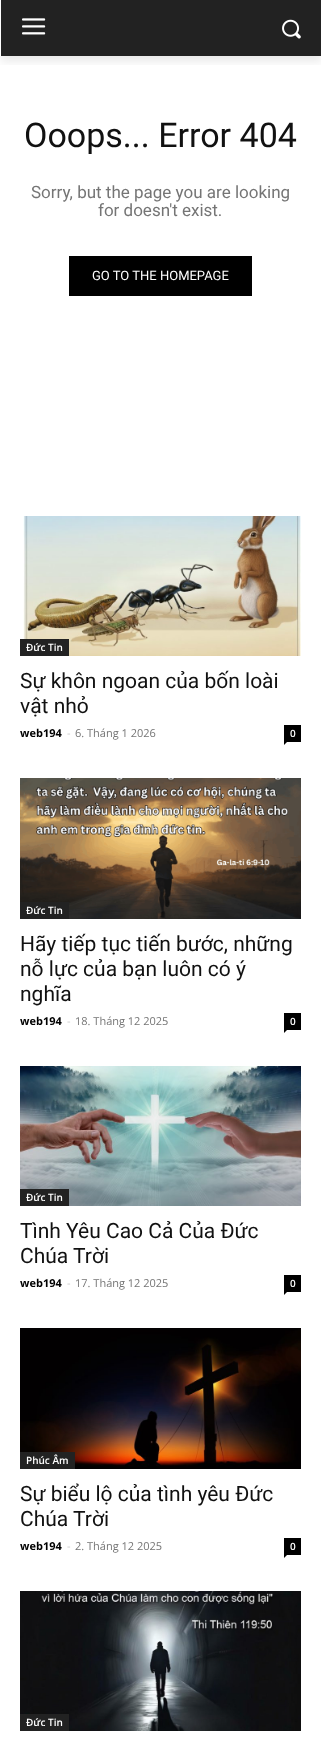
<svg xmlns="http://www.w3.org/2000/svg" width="321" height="1758">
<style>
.a{font:34px Roboto;fill:#111}
.b{font:17px Roboto;fill:#757575}
.c{font:13px Roboto;fill:#fff}
.d{font:600 10px Open Sans;fill:#fff}
.e{font:21px Roboto;fill:#111}
.f{font:bold 11px Open Sans;fill:#000}
.g{font:11px Open Sans;fill:#ccc}
.h{font:11px Open Sans;fill:#757575}
</style>
<defs>
<clipPath id="clip1"><path d="M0 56h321v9H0z"/></clipPath>
</defs>
<rect width="100%" height="100%" fill="#fff"/>
<path fill="#222" d="M1 0h320v56H1z"/>
<image href="1.png" x="22" y="18" width="24" height="17"/>
<image href="2.png" x="282" y="19" width="19" height="20"/>
<g clip-path="url(#clip1)">
<path fill="#00000014" filter="blur(4px)" d="M1 6h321v56H1z"/>
</g>
<path fill="#000" d="M69 256h183v40H69z"/>
<image href="3.png" x="23" y="516" width="278" height="140"/>
<path fill="#222" d="M20 639h49v17H20z"/>
<path fill="#000" d="M284 725h17v17H284z"/>
<path fill="#000" d="M284 742h3l-3 3z"/>
<image href="4.png" x="20" y="778" width="281" height="141"/>
<path fill="#222" d="M20 902h49v17H20z"/>
<path fill="#000" d="M284 1013h17v17H284z"/>
<path fill="#000" d="M284 1030h3l-3 3z"/>
<image href="5.png" x="20" y="1066" width="281" height="140"/>
<path fill="#222" d="M20 1189h49v17H20z"/>
<path fill="#000" d="M284 1275h17v17H284z"/>
<path fill="#000" d="M284 1292h3l-3 3z"/>
<image href="6.png" x="20" y="1328" width="281" height="141"/>
<path fill="#222" d="M20 1452h55v17H20z"/>
<path fill="#000" d="M284 1538h17v17H284z"/>
<path fill="#000" d="M284 1555h3l-3 3z"/>
<image href="7.png" x="20" y="1591" width="281" height="140"/>
<path fill="#222" d="M20 1714h49v17H20z"/>
<text class="a" x="24" y="147">Ooops... Error 404</text>
<text class="b" x="31" y="198">Sorry, but the page you are looking</text>
<text class="b" x="98" y="216">for doesn't exist.</text>
<text class="c" x="92" y="280">GO TO THE HOMEPAGE</text>
<text class="d" x="26" y="651">Đức Tin</text>
<text class="e" x="20" y="688">Sự khôn ngoan của bốn loài</text>
<text class="e" x="20" y="713">vật nhỏ</text>
<text class="f" x="20" y="737">web194</text>
<text class="g" x="67" y="737">-</text>
<text class="h" x="75" y="737">6. Tháng 1 2026</text>
<text class="d" x="290" y="737">0</text>
<text class="d" x="26" y="914">Đức Tin</text>
<text class="e" x="20" y="951">Hãy tiếp tục tiến bước, những</text>
<text class="e" x="20" y="976">nỗ lực của bạn luôn có ý</text>
<text class="e" x="20" y="1001">nghĩa</text>
<text class="f" x="20" y="1025">web194</text>
<text class="g" x="67" y="1025">-</text>
<text class="h" x="75" y="1025">18. Tháng 12 2025</text>
<text class="d" x="290" y="1025">0</text>
<text class="d" x="26" y="1201">Đức Tin</text>
<text class="e" x="20" y="1238">Tình Yêu Cao Cả Của Đức</text>
<text class="e" x="20" y="1263">Chúa Trời</text>
<text class="f" x="20" y="1287">web194</text>
<text class="g" x="67" y="1287">-</text>
<text class="h" x="75" y="1287">17. Tháng 12 2025</text>
<text class="d" x="290" y="1287">0</text>
<text class="d" x="26" y="1464">Phúc Âm</text>
<text class="e" x="20" y="1501">Sự biểu lộ của tình yêu Đức</text>
<text class="e" x="20" y="1526">Chúa Trời</text>
<text class="f" x="20" y="1550">web194</text>
<text class="g" x="67" y="1550">-</text>
<text class="h" x="75" y="1550">2. Tháng 12 2025</text>
<text class="d" x="290" y="1550">0</text>
<text class="d" x="26" y="1726">Đức Tin</text>
</svg>
